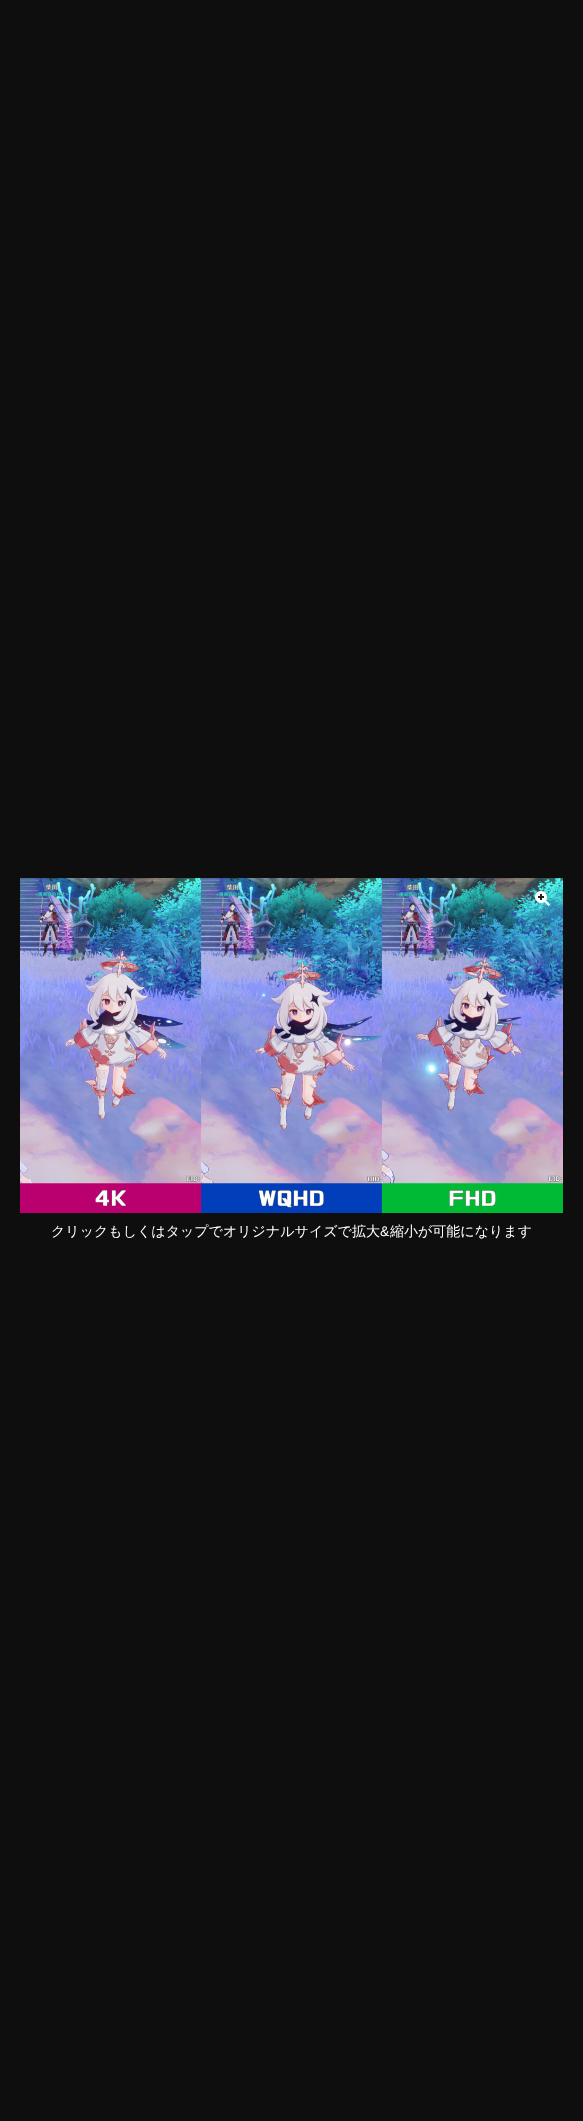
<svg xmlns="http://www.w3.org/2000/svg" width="583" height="2121">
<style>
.a{font:500 14px WenQuanYi Zen Hei;fill:#fff}
.b{font:14px Liberation Sans;fill:#fff}
</style>
<rect width="100%" height="100%" fill="#0e0e0e"/>
<image href="1.png" x="20" y="878" width="543" height="335"/>
<image href="2.png" x="535" y="891" width="15" height="15"/>
<text class="a" x="51" y="1236">クリックもしくはタップでオリジナルサイズで拡大</text>
<text class="b" x="380" y="1236">&amp;</text>
<text class="a" x="390" y="1236">縮小が可能になります</text>
</svg>
